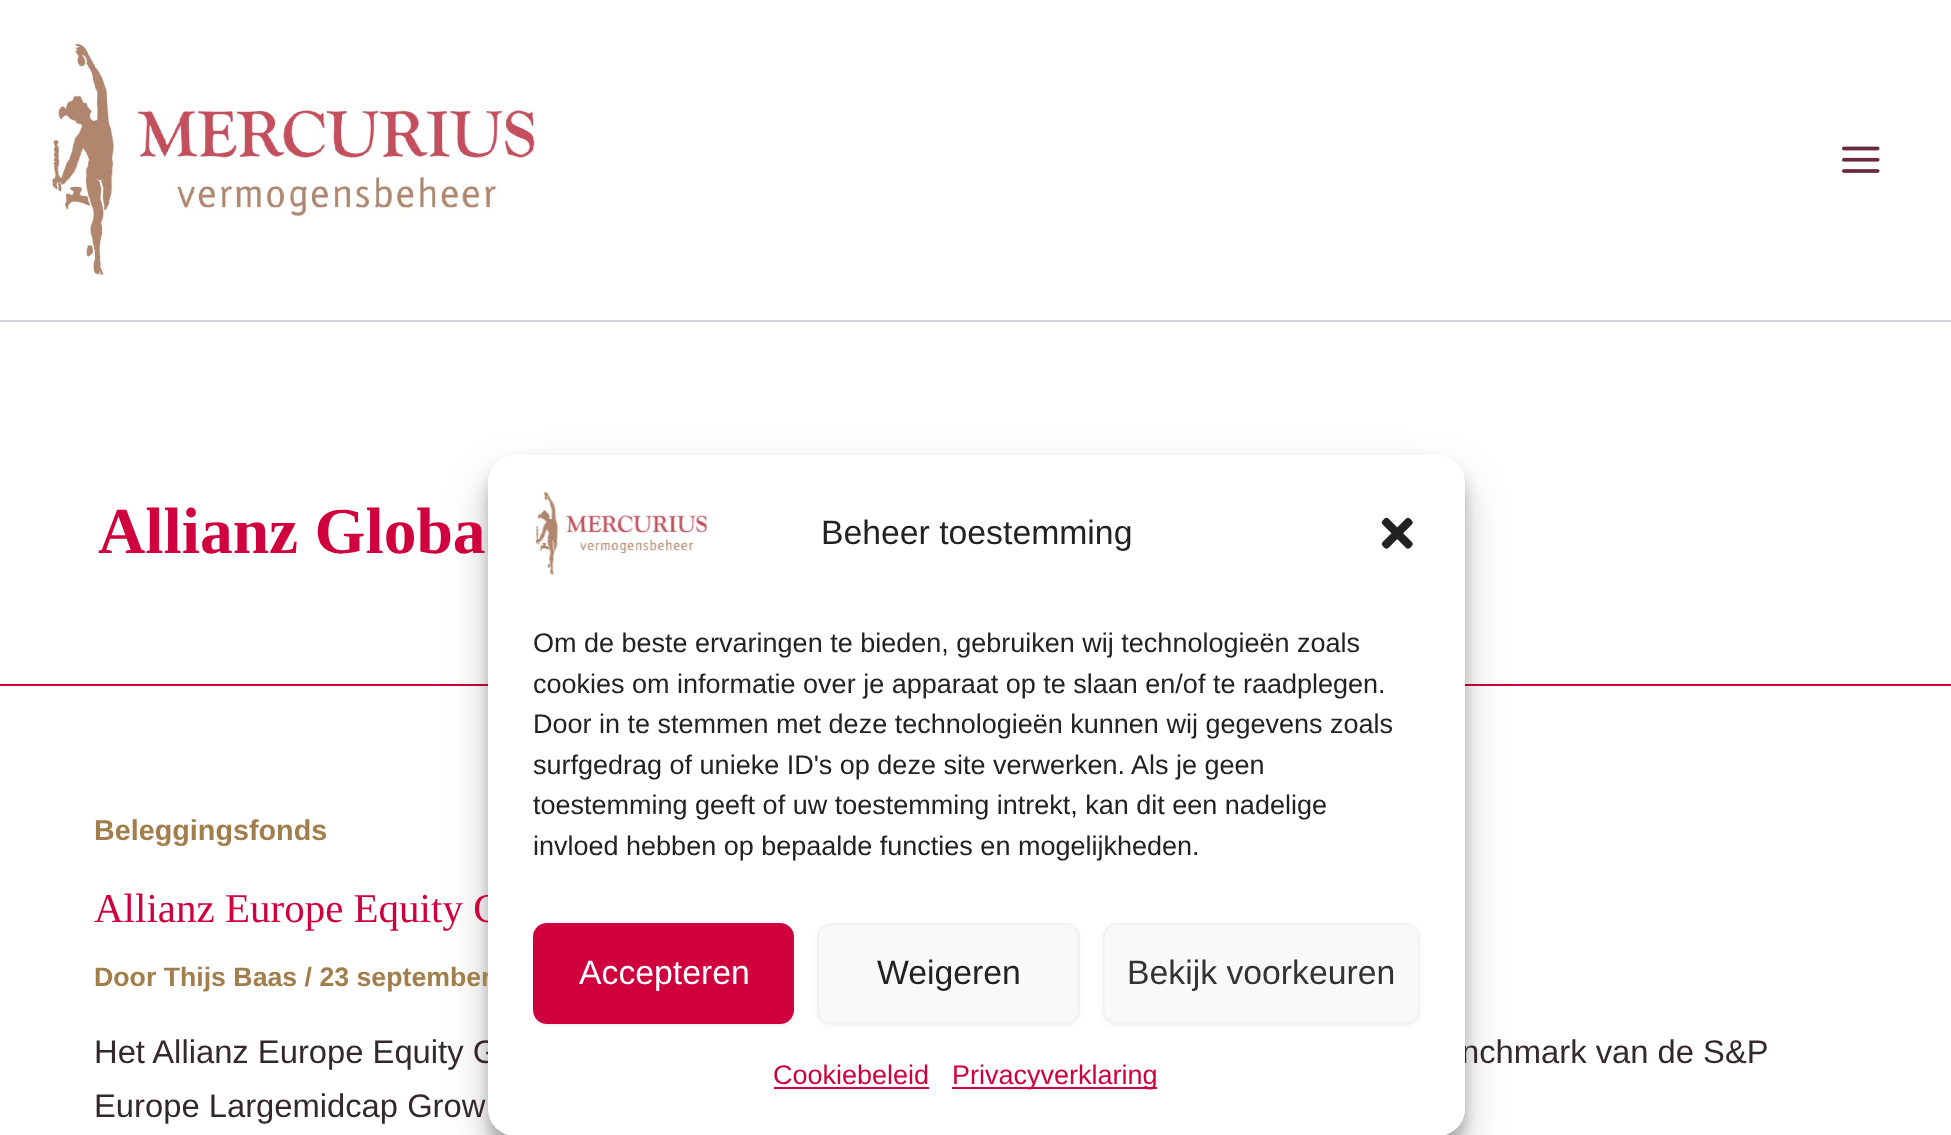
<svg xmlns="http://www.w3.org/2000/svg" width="1951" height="1135">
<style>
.a{font:bold 65.5px Liberation Serif;fill:#cf003d}
.b{font:bold 28.75px Liberation Sans;fill:#a17e4b}
.c{font:41px Liberation Serif;fill:#cf003d}
.d{font:bold 26.7px Liberation Sans;fill:#a17e4b}
.e{font:32.75px Liberation Sans;fill:#33292c}
.f{font:33.75px Liberation Sans;fill:#222}
.g{font:27px Liberation Sans;fill:#222}
.h{font:33.75px Liberation Sans;fill:#fff}
.i{font:33.75px Liberation Sans;fill:#333}
.j{font:27px Liberation Sans;fill:#cf003d}
</style>
<rect width="100%" height="100%" fill="#fff"/>
<path fill="#d1d5db" d="M0 320h1951v2H0z"/>
<image href="1.png" x="46" y="39" width="490" height="240"/>
<image href="2.png" x="1842" y="146" width="38" height="27"/>
<path fill="#cf003d" d="M0 684h1951v2H0z"/>
<rect fill="#0000003b" filter="blur(7px)" x="488" y="468" width="977" height="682" rx="27"/>
<rect fill="#00000030" filter="blur(22.5px)" x="488" y="477" width="977" height="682" rx="27"/>
<text class="a" x="98" y="553">Allianz Globa</text>
<text class="b" x="94" y="840">Beleggingsfonds</text>
<text class="c" x="94" y="922">Allianz Europe Equity G</text>
<text class="d" x="94" y="986">Door Thijs Baas / 23 september</text>
<text class="e" x="94" y="1063">Het Allianz Europe Equity G</text>
<text class="e" x="1461" y="1063">nchmark van de S&amp;P</text>
<text class="e" x="94" y="1117">Europe Largemidcap Grow</text>
<rect fill="#fff" x="488" y="455" width="977" height="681" rx="27"/>
<image href="3.png" x="535" y="491" width="173" height="84"/>
<text class="f" x="821" y="544">Beheer toestemming</text>
<image href="4.png" x="1381" y="517" width="32" height="32"/>
<text class="g" x="533" y="652">Om de beste ervaringen te bieden, gebruiken wij technologieën zoals</text>
<text class="g" x="533" y="693">cookies om informatie over je apparaat op te slaan en/of te raadplegen.</text>
<text class="g" x="533" y="733">Door in te stemmen met deze technologieën kunnen wij gegevens zoals</text>
<text class="g" x="533" y="774">surfgedrag of unieke ID's op deze site verwerken. Als je geen</text>
<text class="g" x="533" y="814">toestemming geeft of uw toestemming intrekt, kan dit een nadelige</text>
<text class="g" x="533" y="855">invloed hebben op bepaalde functies en mogelijkheden.</text>
<rect fill="#0000000d" filter="blur(2px)" x="533" y="925" width="261" height="101" rx="14"/>
<rect fill="#cf003d" stroke="#cf003d" stroke-width="2" x="534" y="924" width="259" height="99" rx="13"/>
<text class="h" x="579" y="984">Accepteren</text>
<rect fill="#0000000d" filter="blur(2px)" x="817" y="925" width="263" height="101" rx="14"/>
<rect fill="#f9f9f9" stroke="#f2f2f2" stroke-width="2" x="818" y="924" width="261" height="99" rx="13"/>
<text class="f" x="877" y="984">Weigeren</text>
<rect fill="#0000000d" filter="blur(2px)" x="1103" y="925" width="317" height="101" rx="14"/>
<rect fill="#f9f9f9" stroke="#f2f2f2" stroke-width="2" x="1104" y="924" width="315" height="99" rx="13"/>
<text class="i" x="1127" y="984">Bekijk voorkeuren</text>
<text class="j" x="773" y="1084">Cookiebeleid</text>
<path fill="#cf003d" d="M774 1087h155v2H774z"/>
<path fill="#cf003d" d="M952 1087h205v2H952z"/>
<text class="j" x="952" y="1084">Privacyverklaring</text>
</svg>
